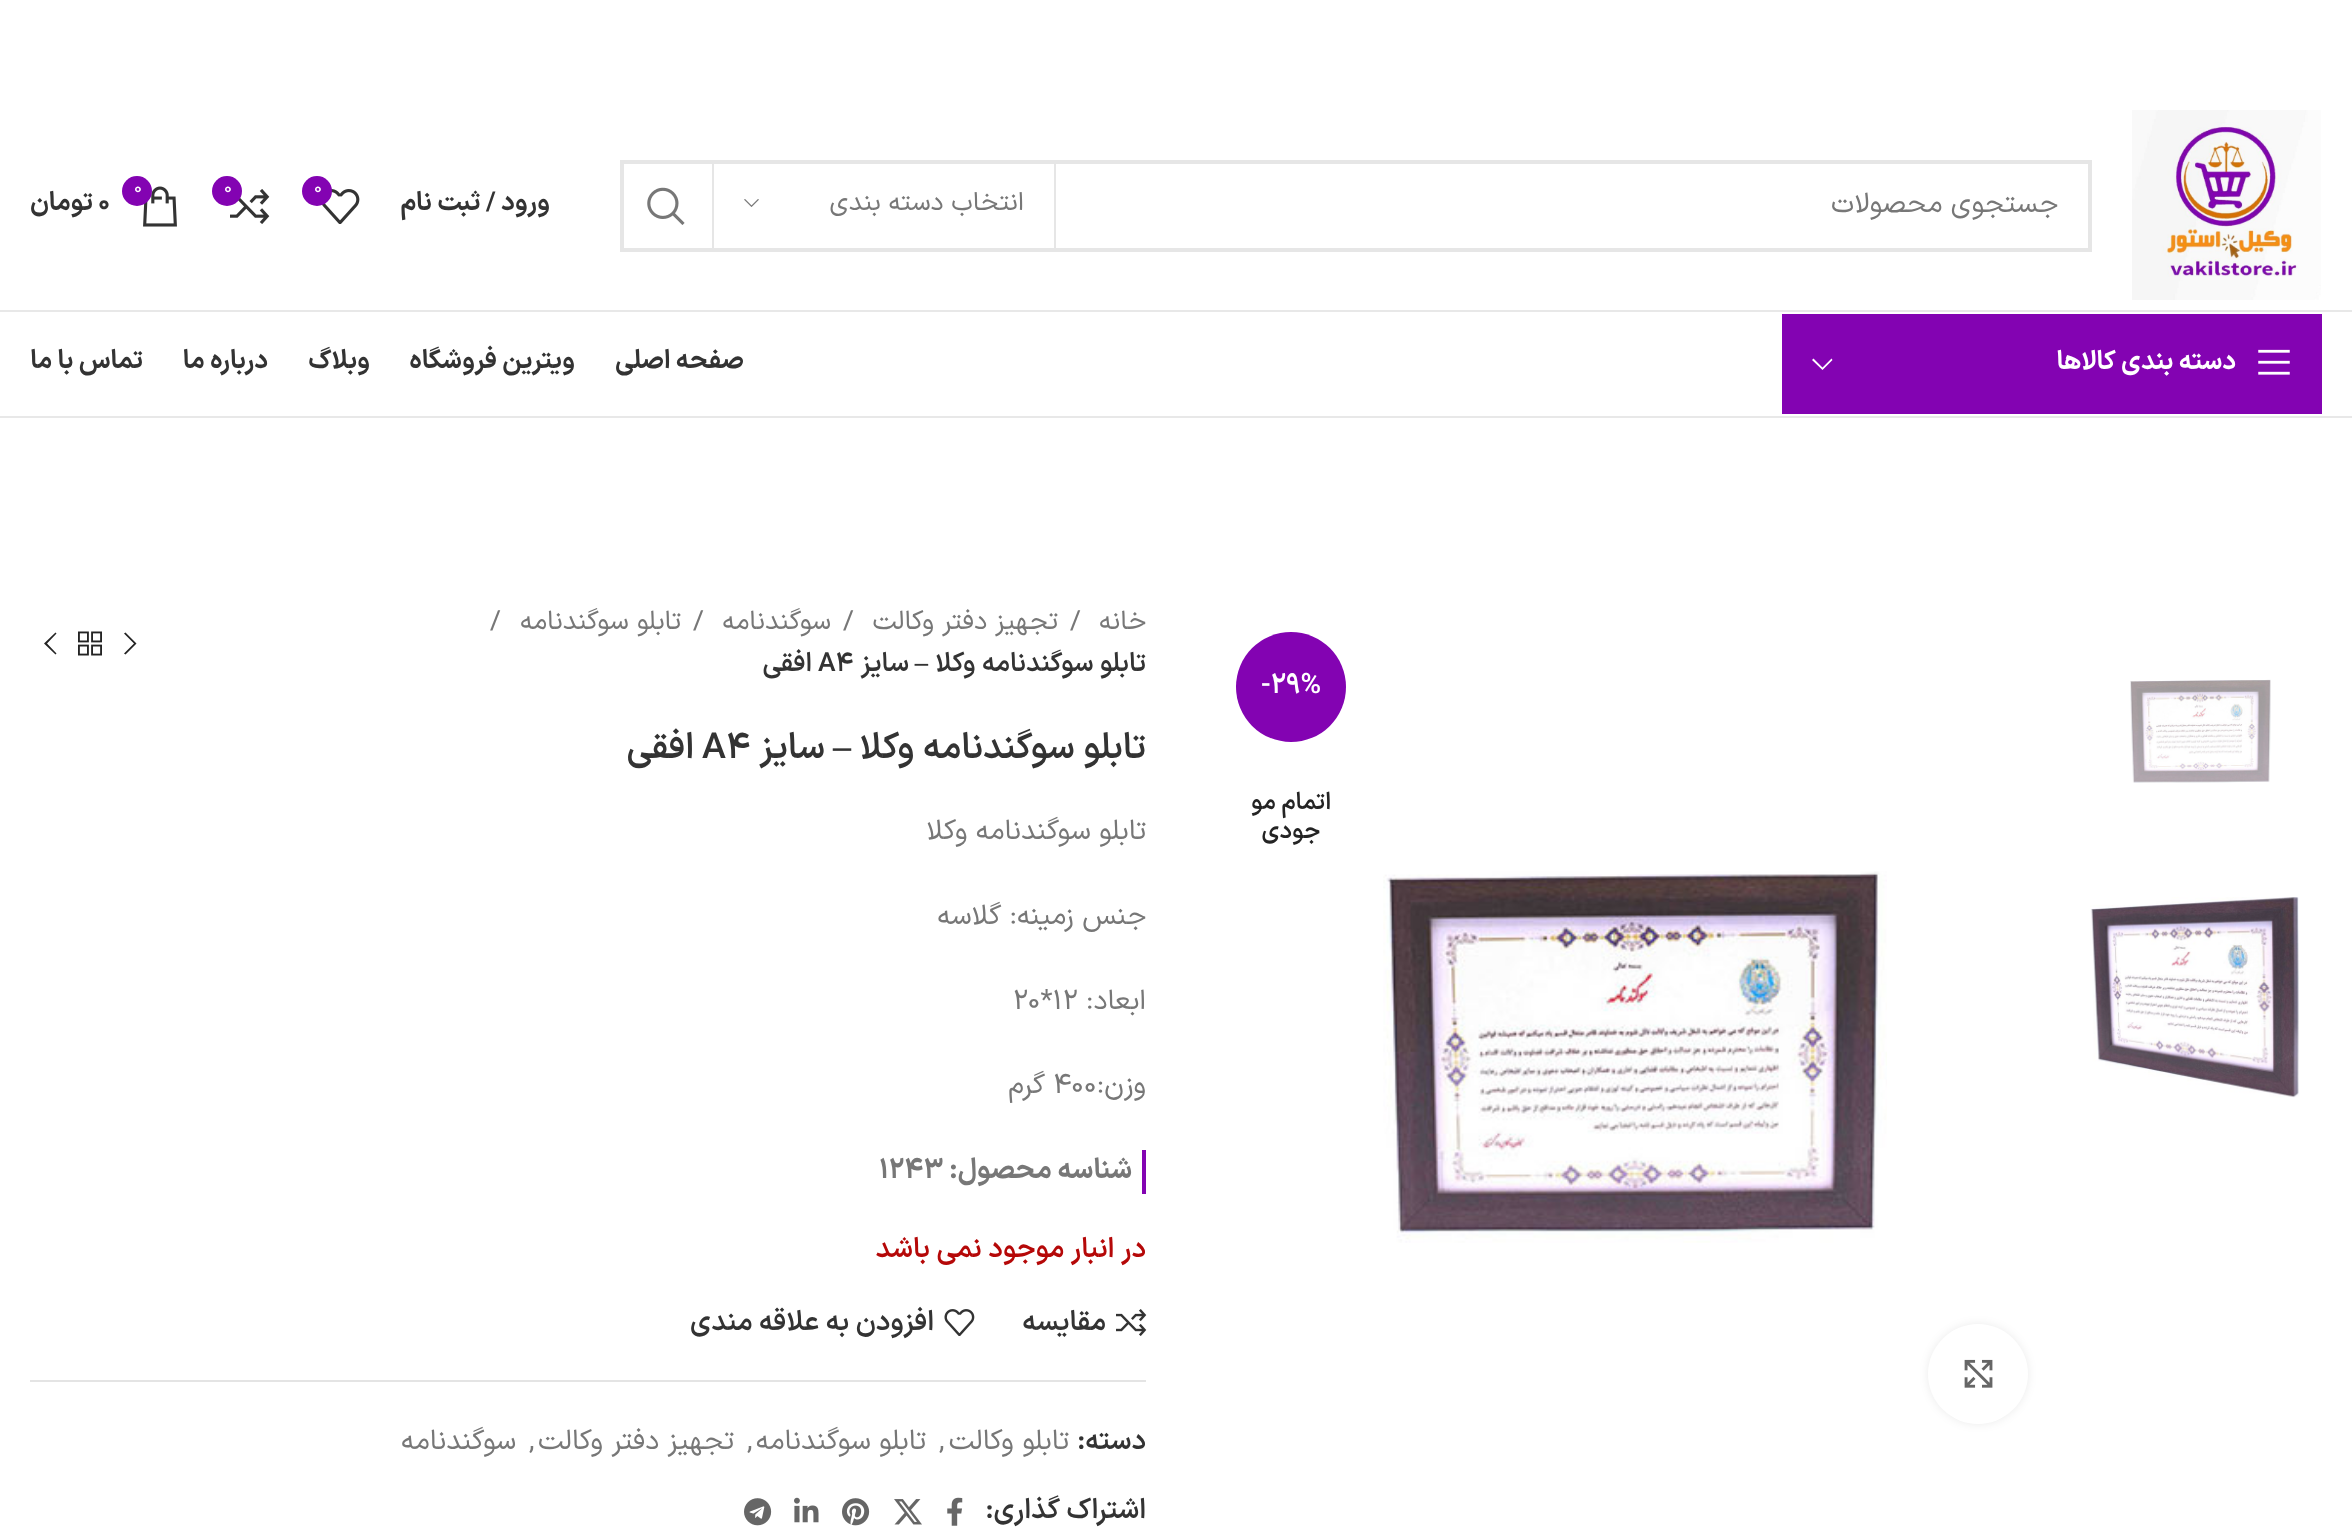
<svg xmlns="http://www.w3.org/2000/svg" width="2352" height="1540">
<style>
.a{font:28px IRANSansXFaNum;direction:rtl;fill:#777}
.b{font:26px IRANSansXFaNum;direction:rtl;fill:#777}
.c{font:bold 26px IRANSansXFaNum;direction:rtl;fill:#333}
.d{font:18px IRANSansXFaNum;fill:#fff}
.e{font:bold 26px IRANSansXFaNum;fill:#333}
.f{font:bold 26px IRANSansXFaNum;direction:rtl;fill:#fff}
.g{font:600 28px IRANSansXFaNum;fill:#fff}
.h{font:600 24px IRANSansXFaNum;direction:rtl;fill:#242424}
.i{font:26.5px IRANSansXFaNum;direction:rtl;fill:#777}
.j{font:26.5px IRANSansXFaNum;fill:#777}
.k{font:600 26.5px IRANSansXFaNum;direction:rtl;fill:#333}
.l{font:bold 26.5px Liberation Serif;direction:rtl;fill:#333}
.m{font:600 26.5px IRANSansXFaNum;fill:#333}
.n{font:600 36px IRANSansXFaNum;direction:rtl;fill:#333}
.o{font:bold 36px Liberation Serif;direction:rtl;fill:#333}
.p{font:600 36px IRANSansXFaNum;fill:#333}
.q{font:28px IRANSansXFaNum;fill:#777}
.r{font:bold 28px IRANSansXFaNum;direction:rtl;fill:#777}
.s{font:bold 28px IRANSansXFaNum;fill:#777}
.t{font:600 28px IRANSansXFaNum;direction:rtl;fill:#b50808}
.u{font:600 28px IRANSansXFaNum;direction:rtl;fill:#333}
</style>
<rect width="100%" height="100%" fill="#fff"/>
<path fill="#e8e8e8" d="M0 310h2352v2H0z"/>
<image href="1.png" x="2132" y="110" width="189" height="190"/>
<path fill="none" stroke="#e6e6e6" stroke-width="4" d="M622 162h1468v88H622z"/>
<path fill="#e6e6e6" d="M1054 164h2v84H1054z"/>
<path fill="#e6e6e6" d="M712 164h2v84H712z"/>
<image href="2.png" x="744" y="199" width="15" height="8"/>
<image href="3.png" x="647" y="187" width="38" height="38"/>
<image href="4.png" x="322" y="189" width="38" height="35"/>
<circle fill="#8303b2" cx="317" cy="191" r="15"/>
<image href="5.png" x="230" y="189" width="40" height="35"/>
<circle fill="#8303b2" cx="227" cy="191" r="15"/>
<image href="6.png" x="143" y="186" width="34" height="41"/>
<circle fill="#8303b2" cx="137" cy="191" r="15"/>
<path fill="#e8e8e8" d="M0 416h2352v2H0z"/>
<path fill="#8303b2" d="M1782 314h540v100H1782z"/>
<image href="7.png" x="2258" y="349" width="32" height="26"/>
<path fill="#fff" d="M1831.5 358.5l-9 9l-9-9l-1.5 1.5l10.5 10l10-10z"/>
<image href="8.png" x="2130" y="679" width="141" height="104"/>
<image href="9.png" x="2090" y="897" width="209" height="201"/>
<circle fill="#8303b2" cx="1291" cy="687" r="55"/>
<image href="10.png" x="1383" y="871" width="504" height="372"/>
<rect fill="#00000014" filter="blur(5px)" x="1928" y="1324" width="100" height="100" rx="50"/>
<circle fill="#fff" cx="1978" cy="1374" r="50"/>
<image href="11.png" x="1964" y="1359" width="29" height="29"/>
<path fill="#242424" d="M124 633.5l10 10l-10 10l1.5 1l11-11l-11-11z"/>
<image href="12.png" x="78" y="631" width="24" height="25"/>
<path fill="#242424" d="M56.5 633.5l-1-1l-11.5 11l11.5 11l1-1l-9.5-10z"/>
<path fill="#8303b2" d="M1142 1150h4v44H1142z"/>
<image href="13.png" x="1116" y="1309" width="31" height="27"/>
<image href="14.png" x="944" y="1309" width="31" height="27"/>
<path fill="#e4e4e4" d="M30 1380h1116v2H30z"/>
<image href="15.png" x="947" y="1497" width="16" height="29"/>
<image href="16.png" x="894" y="1499" width="28" height="26"/>
<image href="17.png" x="842" y="1498" width="28" height="28"/>
<image href="18.png" x="794" y="1497" width="25" height="26"/>
<image href="19.png" x="744" y="1498" width="28" height="28"/>
<text class="a" x="2058" y="212">جستجوی محصولات</text>
<text class="b" x="1024" y="210">انتخاب دسته بندی</text>
<text class="c" x="550" y="210">ورود / ثبت نام</text>
<text class="d" x="314" y="193">0</text>
<text class="d" x="224" y="193">0</text>
<text class="d" x="134" y="193">0</text>
<text class="e" x="98" y="210">0</text>
<text class="c" x="93" y="210">تومان</text>
<text class="f" x="2236" y="369">دسته بندی کالاها</text>
<text class="c" x="744" y="368">صفحه اصلی</text>
<text class="c" x="575" y="368">ویترین فروشگاه</text>
<text class="c" x="370" y="368">وبلاگ</text>
<text class="c" x="268" y="368">درباره ما</text>
<text class="c" x="143" y="368">تماس با ما</text>
<text class="g" x="1261" y="693">-29%</text>
<text class="h" x="1331" y="809">اتمام مو</text>
<text class="h" x="1320" y="838">جودی</text>
<text class="i" x="1146" y="629">خانه</text>
<text class="j" x="1070" y="629">/</text>
<text class="i" x="1058" y="629">تجهیز دفتر وکالت</text>
<text class="j" x="843" y="629">/</text>
<text class="i" x="831" y="629">سوگندنامه</text>
<text class="j" x="693" y="629">/</text>
<text class="i" x="681" y="629">تابلو سوگندنامه</text>
<text class="j" x="490" y="629">/</text>
<text class="k" x="1146" y="671">تابلو سوگندنامه وکلا</text>
<text class="l" x="928" y="671">–</text>
<text class="k" x="909" y="671">سایز</text>
<text class="m" x="818" y="671">A4</text>
<text class="k" x="812" y="671">افقی</text>
<text class="n" x="1146" y="758">تابلو سوگندنامه وکلا</text>
<text class="o" x="851" y="758">–</text>
<text class="n" x="825" y="758">سایز</text>
<text class="p" x="702" y="758">A4</text>
<text class="n" x="694" y="758">افقی</text>
<text class="a" x="1146" y="839">تابلو سوگندنامه وکلا</text>
<text class="a" x="1146" y="924">جنس زمینه: گلاسه</text>
<text class="a" x="1146" y="1009">ابعاد:</text>
<text class="q" x="1013" y="1009">20*12</text>
<text class="a" x="1146" y="1093">وزن:</text>
<text class="q" x="1053" y="1093">400</text>
<text class="a" x="1045" y="1093">گرم</text>
<text class="r" x="1132" y="1178">شناسه محصول:</text>
<text class="s" x="879" y="1178">1243</text>
<text class="t" x="1146" y="1257">در انبار موجود نمی باشد</text>
<text class="u" x="1106" y="1330">مقایسه</text>
<text class="u" x="934" y="1330">افزودن به علاقه مندی</text>
<text class="u" x="1146" y="1449">دسته:</text>
<text class="a" x="1069" y="1449">تابلو وکالت</text>
<text class="q" x="939" y="1449">,</text>
<text class="a" x="926" y="1449">تابلو سوگندنامه</text>
<text class="q" x="747" y="1449">,</text>
<text class="a" x="734" y="1449">تجهیز دفتر وکالت</text>
<text class="q" x="529" y="1449">,</text>
<text class="a" x="516" y="1449">سوگندنامه</text>
<text class="u" x="1146" y="1518">اشتراک گذاری:</text>
</svg>
